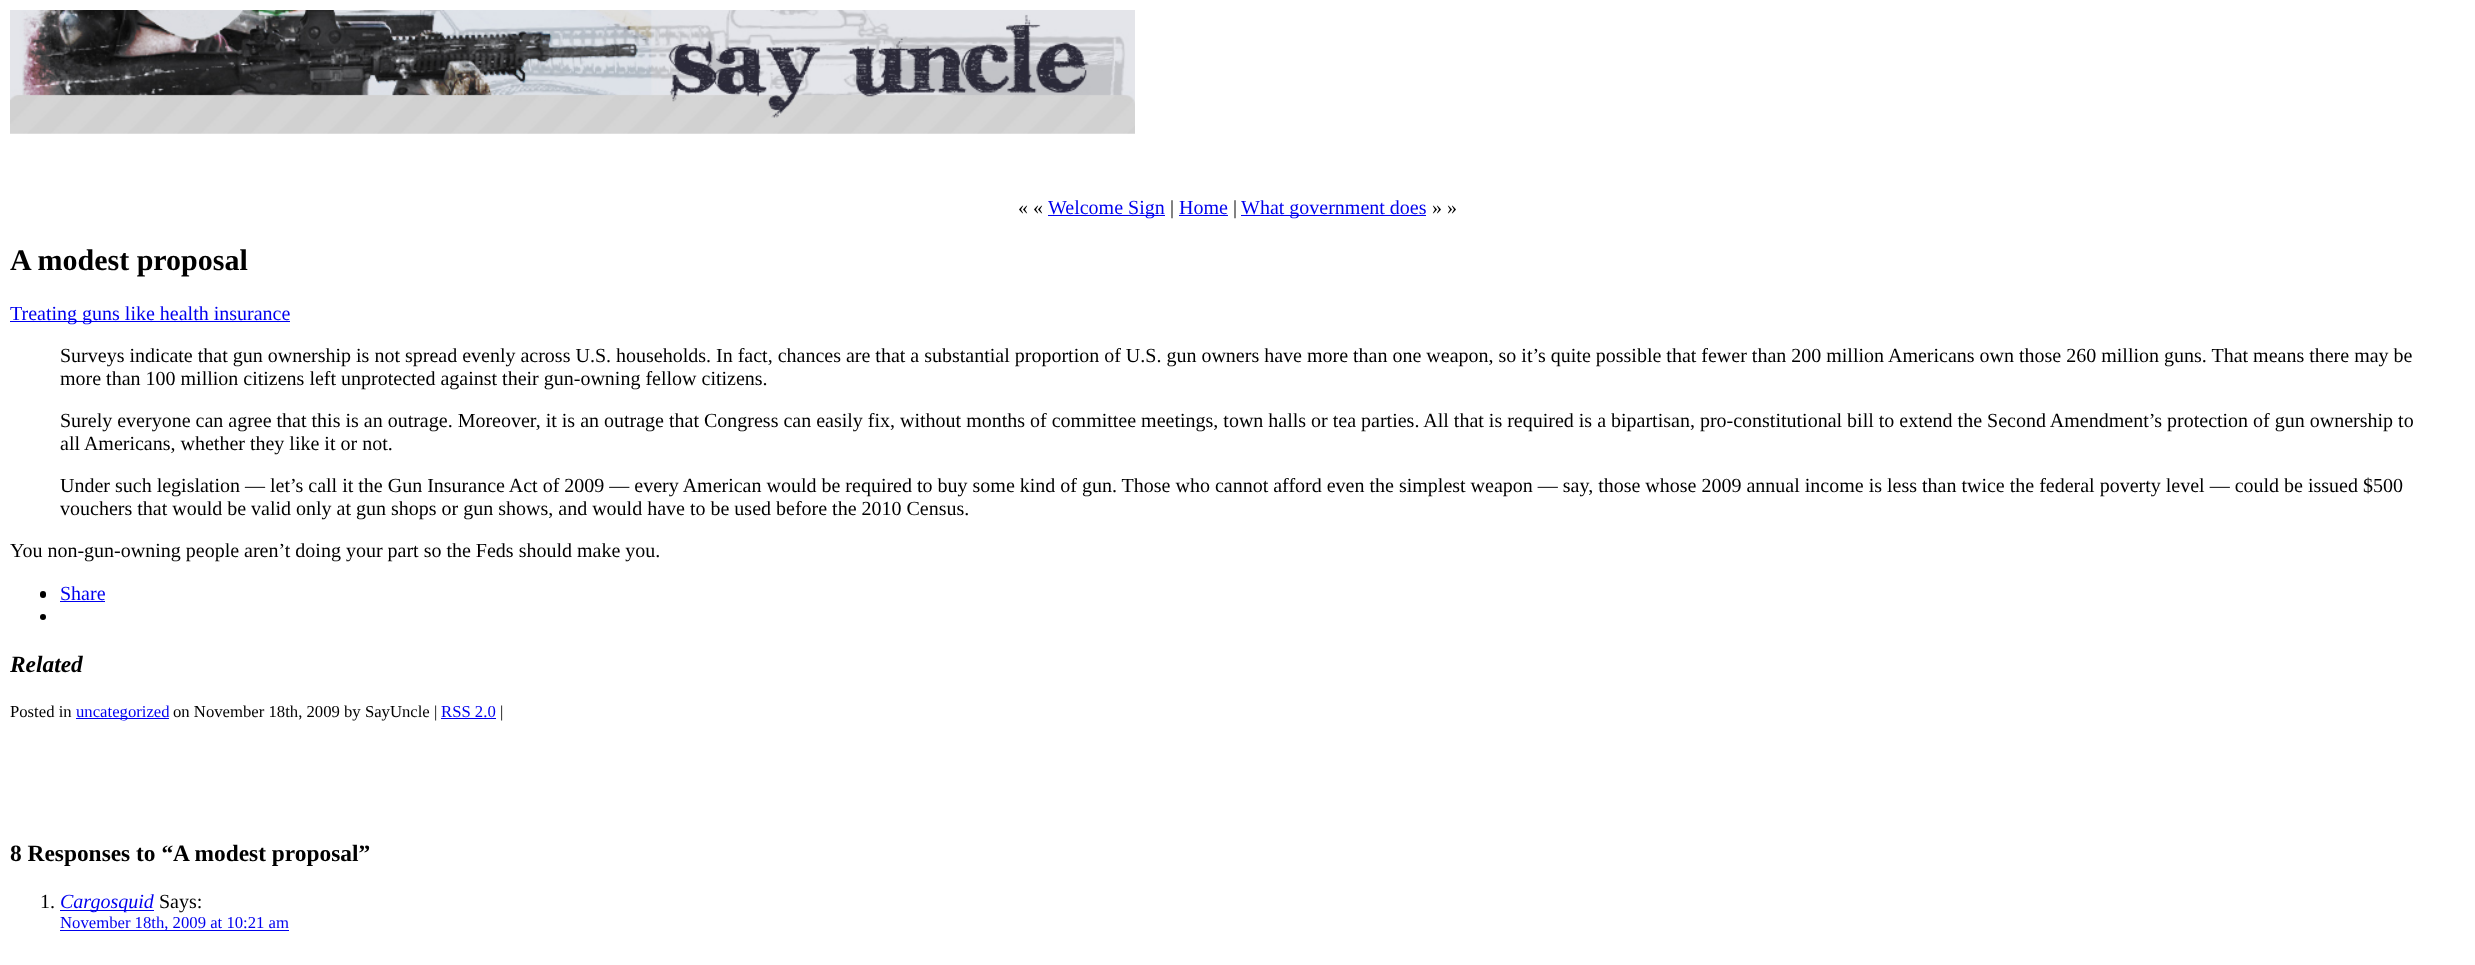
<svg xmlns="http://www.w3.org/2000/svg" width="2475" height="965">
<style>
.a{font:20px Liberation Serif;fill:#000}
.b{font:20px Liberation Serif;fill:#00e}
.c{font:bold 30px Liberation Serif;fill:#000}
.d{font:italic bold 23.4px Liberation Serif;fill:#000}
.e{font:16.7px Liberation Serif;fill:#000}
.f{font:16.7px Liberation Serif;fill:#00e}
.g{font:bold 23.4px Liberation Serif;fill:#000}
.h{font:italic 20px Liberation Serif;fill:#00e}
</style>
<rect width="100%" height="100%" fill="#fff"/>
<image href="1.png" x="10" y="10" width="1125" height="124"/>
<path fill="#00e" d="M1048 215h117v1H1048z"/>
<path fill="#00e" d="M1179 215h49v1H1179z"/>
<path fill="#00e" d="M1241 215h185v1H1241z"/>
<path fill="#00e" d="M10 321h280v1H10z"/>
<rect fill="#000" x="40" y="591" width="6" height="7" rx="3"/>
<path fill="#00e" d="M60 601h45v1H60z"/>
<circle fill="#000" cx="43" cy="617" r="3"/>
<path fill="#00e" d="M76 718h93v1H76z"/>
<path fill="#00e" d="M441 718h55v1H441z"/>
<path fill="#00e" d="M60 910h94v1H60z"/>
<path fill="#00e" d="M60 930h229v1H60z"/>
<text class="a" x="1018" y="214">« «</text>
<text class="b" x="1048" y="214">Welcome Sign</text>
<text class="a" x="1170" y="214">|</text>
<text class="b" x="1179" y="214">Home</text>
<text class="a" x="1233" y="214">|</text>
<text class="b" x="1241" y="214">What government does</text>
<text class="a" x="1432" y="214">» »</text>
<text class="c" x="10" y="270">A modest proposal</text>
<text class="b" x="10" y="320">Treating guns like health insurance</text>
<text class="a" x="60" y="362">Surveys indicate that gun ownership is not spread evenly across U.S. households. In fact, chances are that a substantial proportion of U.S. gun owners have more than one weapon, so it’s quite possible that fewer than 200 million Americans own those 260 million guns. That means there may be</text>
<text class="a" x="60" y="385">more than 100 million citizens left unprotected against their gun-owning fellow citizens.</text>
<text class="a" x="60" y="427">Surely everyone can agree that this is an outrage. Moreover, it is an outrage that Congress can easily fix, without months of committee meetings, town halls or tea parties. All that is required is a bipartisan, pro-constitutional bill to extend the Second Amendment’s protection of gun ownership to</text>
<text class="a" x="60" y="450">all Americans, whether they like it or not.</text>
<text class="a" x="60" y="492">Under such legislation — let’s call it the Gun Insurance Act of 2009 — every American would be required to buy some kind of gun. Those who cannot afford even the simplest weapon — say, those whose 2009 annual income is less than twice the federal poverty level — could be issued $500</text>
<text class="a" x="60" y="515">vouchers that would be valid only at gun shops or gun shows, and would have to be used before the 2010 Census.</text>
<text class="a" x="10" y="557">You non-gun-owning people aren’t doing your part so the Feds should make you.</text>
<text class="b" x="60" y="600">Share</text>
<text class="d" x="10" y="672">Related</text>
<text class="e" x="10" y="717">Posted in</text>
<text class="f" x="76" y="717">uncategorized</text>
<text class="e" x="173" y="717">on November 18th, 2009 by SayUncle |</text>
<text class="f" x="441" y="717">RSS 2.0</text>
<text class="e" x="500" y="717">|</text>
<text class="g" x="10" y="861">8 Responses to “A modest proposal”</text>
<text class="a" x="40" y="908">1.</text>
<text class="h" x="60" y="908">Cargosquid</text>
<text class="a" x="159" y="908">Says:</text>
<text class="f" x="60" y="928">November 18th, 2009 at 10:21 am</text>
</svg>
